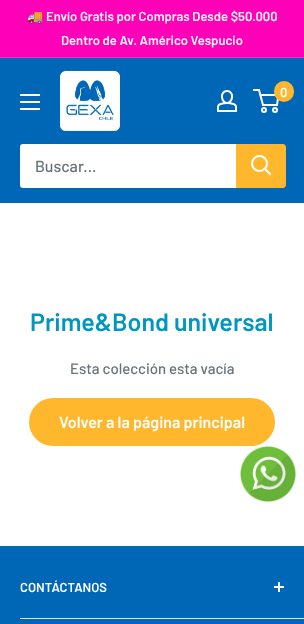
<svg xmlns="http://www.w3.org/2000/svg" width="304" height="624">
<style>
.a{font:bold 13px Noto Color Emoji;fill:#fff}
.b{font:600 13px Barlow;fill:#fff}
.c{font:500 16px Barlow;fill:#677279}
.d{font:600 25px Barlow;fill:#0096bf}
.e{font:500 15px Barlow;fill:#677279}
.f{font:600 16px Barlow;fill:#fff}
</style>
<rect width="100%" height="100%" fill="#fff"/>
<path fill="#ff00b9" d="M0 0h304v57H0z"/>
<path fill="#e335c9" d="M0 57h304v1H0z"/>
<path fill="#0067b6" d="M0 58h304v145H0z"/>
<image href="1.png" x="60" y="70" width="60" height="61"/>
<image href="2.png" x="217" y="90" width="20" height="22"/>
<circle fill="none" stroke="#fff" stroke-width="2" cx="264" cy="110" r="2"/>
<circle fill="none" stroke="#fff" stroke-width="2" cx="275" cy="110" r="2"/>
<path fill="none" stroke="#fff" stroke-width="2" d="M260.5 95h18l-1.5 10h-14l-4-15h-6"/>
<rect fill="#ffb82d" x="274" y="81" width="20" height="21" rx="10"/>
<image href="3.png" x="20" y="94" width="20" height="16"/>
<rect fill="#fff" x="20" y="144" width="264" height="44" rx="3"/>
<path fill="#ffb82d" d="M236 144h47c1.5 0 3 1.5 3 3v38c0 1.5-1.5 3-3 3h-47z"/>
<path fill="none" stroke="#fff" stroke-width="2" stroke-linecap="square" d="M270 174l-5-5"/>
<circle fill="none" stroke="#fff" stroke-width="2" cx="259.5" cy="163.5" r="7.5"/>
<rect fill="#ffb82d" x="29" y="398" width="246" height="48" rx="24"/>
<image href="4.png" x="240" y="446" width="57" height="57"/>
<path fill="#0067b6" d="M0 546h304v78H0z"/>
<path fill="#e1e3e4" d="M20 618h284v1H20z"/>
<path fill="#fff" d="M278 582h2v10H278z"/>
<path fill="#fff" d="M274 586h10v2H274z"/>
<text class="a" x="27" y="21">🚚</text>
<text class="b" x="46" y="21">Envío Gratis por Compras Desde $50.000</text>
<text class="b" x="61" y="45">Dentro de Av. Américo Vespucio</text>
<text class="b" x="280" y="97">0</text>
<text class="c" x="35" y="172">Buscar...</text>
<text class="d" x="30" y="331">Prime&amp;Bond universal</text>
<text class="e" x="70" y="374">Esta colección esta vacía</text>
<text class="f" x="59" y="428">Volver a la página principal</text>
<text class="b" x="20" y="592">CONTÁCTANOS</text>
</svg>
